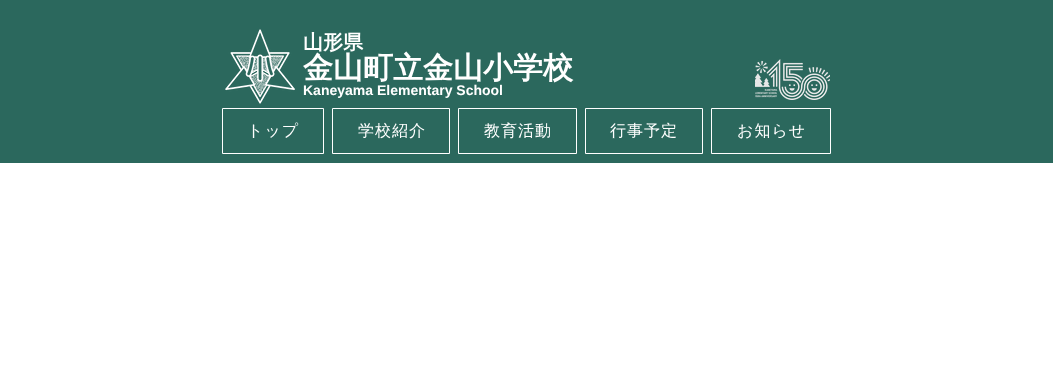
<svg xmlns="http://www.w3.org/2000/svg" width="1053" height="374">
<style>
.a{font:bold 20px WenQuanYi Zen Hei;fill:#fff}
.b{font:bold 30px WenQuanYi Zen Hei;fill:#fff}
.c{font:bold 14px Liberation Sans;fill:#fff}
.d{font:500 16px WenQuanYi Zen Hei;letter-spacing:1px;fill:#fff}
</style>
<rect width="100%" height="100%" fill="#fff"/>
<path fill="#2b685d" d="M0 0h1053v163H0z"/>
<image href="1.png" x="225" y="29" width="70" height="75"/>
<image href="2.png" x="755" y="59" width="75" height="41"/>
<path fill="none" stroke="#fff" d="M222.5 108.5h101v45H222.5z"/>
<path fill="none" stroke="#fff" d="M332.5 108.5h117v45H332.5z"/>
<path fill="none" stroke="#fff" d="M458.5 108.5h118v45H458.5z"/>
<path fill="none" stroke="#fff" d="M585.5 108.5h117v45H585.5z"/>
<path fill="none" stroke="#fff" d="M711.5 108.5h119v45H711.5z"/>
<text class="a" x="303" y="49">山形県</text>
<text class="b" x="303" y="78">金山町立金山小学校</text>
<text class="c" x="303" y="95">Kaneyama Elementary School</text>
<text class="d" x="247" y="136">トップ</text>
<text class="d" x="358" y="136">学校紹介</text>
<text class="d" x="484" y="136">教育活動</text>
<text class="d" x="610" y="136">行事予定</text>
<text class="d" x="737" y="136">お知らせ</text>
</svg>
